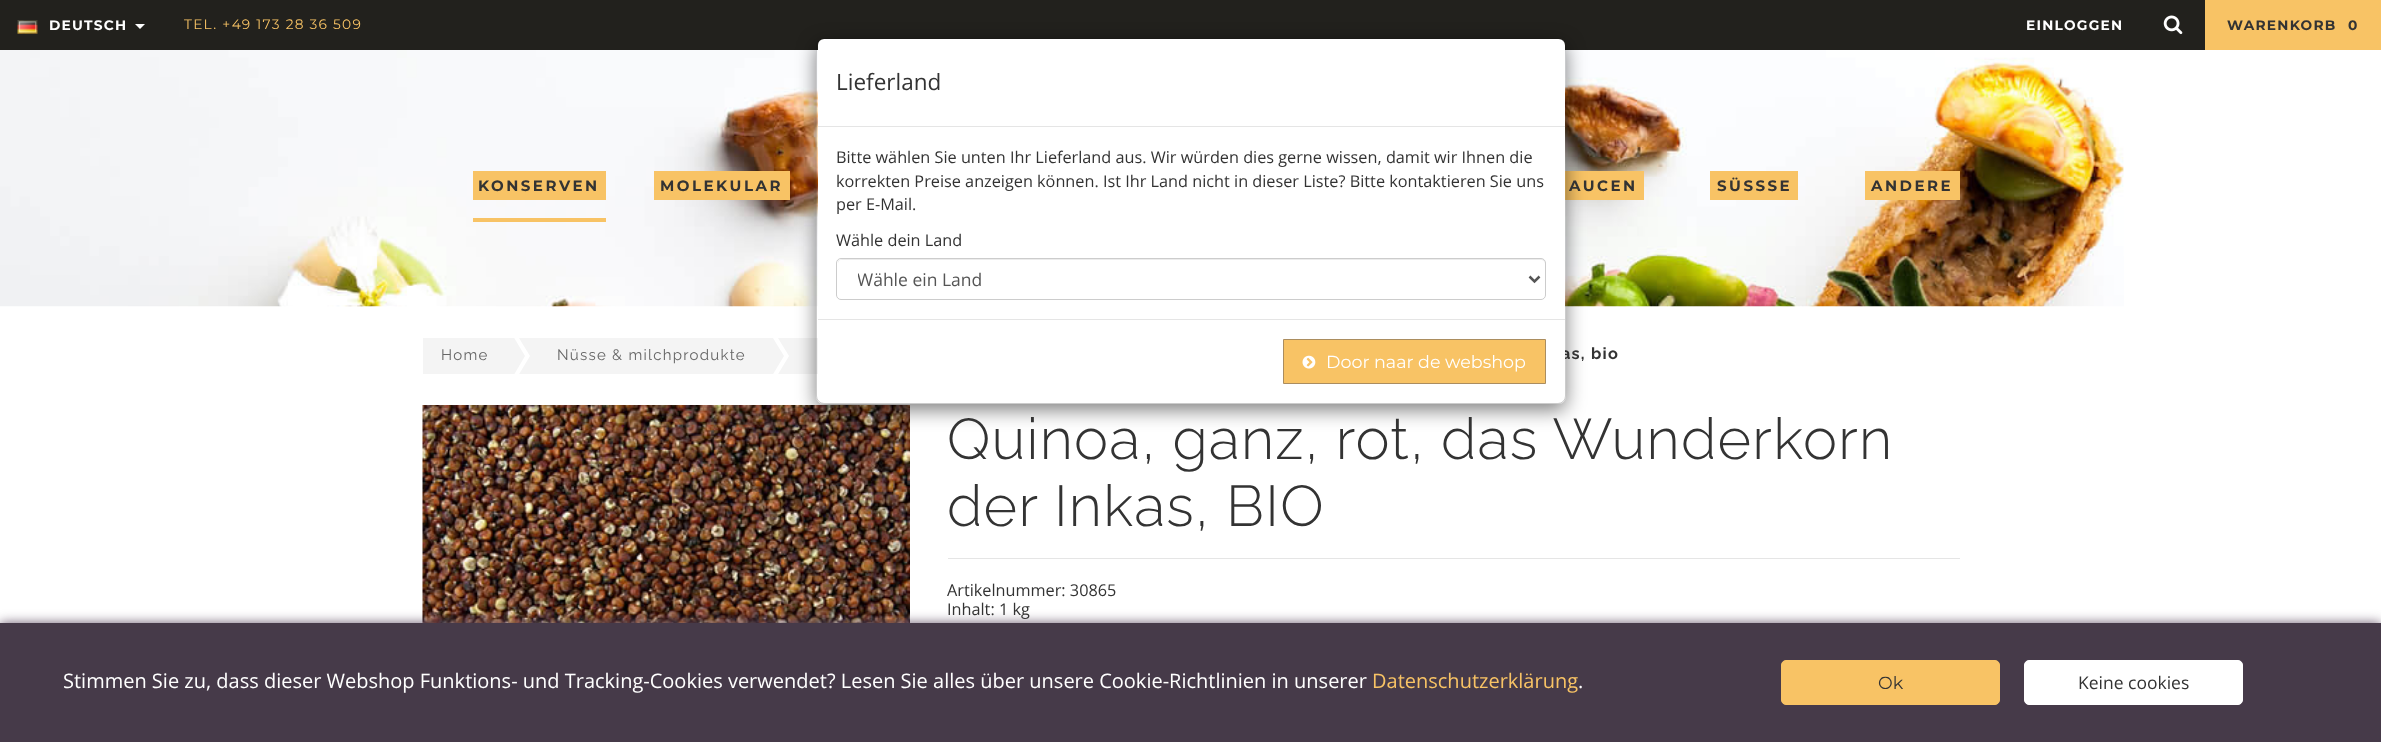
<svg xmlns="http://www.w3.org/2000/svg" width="2381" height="742">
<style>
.a{font:bold 13.75px Montserrat;letter-spacing:1.25px;fill:#fff}
.b{font:13.75px Montserrat;letter-spacing:1.25px;fill:#f8c365}
.c{font:bold 13.75px Montserrat;letter-spacing:1.25px;fill:#333}
.d{font:bold 15px Montserrat;letter-spacing:2.5px;fill:#333}
.e{font:15px Raleway;letter-spacing:1.25px;fill:#666}
.f{font:bold 16.25px Raleway;letter-spacing:1.25px;fill:#333}
.g{font:300 57.5px Raleway;letter-spacing:1.25px;fill:#333}
.h{font:16.25px Open Sans;fill:#333}
.i{font:22.5px Open Sans;fill:#333}
.j{font:17.5px Open Sans;fill:#555}
.k{font:17.5px Montserrat;fill:#fff}
.l{font:20px Open Sans;fill:#fff}
.m{font:20px Open Sans;fill:#f8c365}
.n{font:17.5px Montserrat;fill:#333}
.o{font:17.5px Open Sans;fill:#333}
</style>
<defs>
<clipPath id="clip1"><path d="M423 338h1537v36H423z"/></clipPath>
<clipPath id="clip2"><path d="M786 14h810v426h-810zm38 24h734c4.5 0 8 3.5 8 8v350c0 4.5-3.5 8-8 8h-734c-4.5 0-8-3.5-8-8v-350c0-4.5 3.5-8 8-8z" clip-rule="evenodd"/></clipPath>
<clipPath id="clip3"><path d="M858 266h652v27H858z"/></clipPath>
</defs>
<rect width="100%" height="100%" fill="#fff"/>
<path fill="#22211d" d="M0 0h2205v50H0z"/>
<image href="1.png" x="17" y="20" width="21" height="14"/>
<path fill="#fff" d="M135 24h10l-5 5z"/>
<image href="2.png" x="2163" y="15" width="20" height="20"/>
<path fill="#f8c365" d="M2205 0h176v50H2205z"/>
<image href="3.png" x="0" y="50" width="2124" height="257"/>
<path fill="#f8c365" d="M473 171h133v29H473z"/>
<path fill="#f8c365" d="M473 218h133v4H473z"/>
<path fill="#f8c365" d="M654 171h136v29H654z"/>
<path fill="#f8c365" d="M1565 171h79v29H1565z"/>
<path fill="#f8c365" d="M1710 171h88v29H1710z"/>
<path fill="#f8c365" d="M1865 171h95v29H1865z"/>
<path fill="#f4f4f4" d="M423 338h65v36H423z"/>
<path fill="#f4f4f4" d="M519 338h227v36H519z"/>
<g clip-path="url(#clip1)">
<path fill="#fff" d="M492 419v-125l38 62z"/>
<path fill="#f4f4f4" d="M488 419v-125l37 62z"/>
</g>
<path fill="#f4f4f4" d="M778 338h40v36H778z"/>
<g clip-path="url(#clip1)">
<path fill="#fff" d="M751 419v-125l38 62z"/>
<path fill="#f4f4f4" d="M746 419v-125l38 62z"/>
</g>
<image href="4.png" x="422" y="405" width="488" height="218"/>
<path fill="#e5e5e5" d="M948 558h1012v1H948z"/>
<g clip-path="url(#clip2)">
<rect fill="#00000080" filter="blur(9.5px)" x="816" y="44" width="750" height="366" rx="8"/>
</g>
<path fill="#69576d" filter="blur(6px)" d="M0 623h2381v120H0z"/>
<path fill="#463a49" d="M0 623h2381v119H0z"/>
<rect fill="#f8c365" stroke="#f8c365" x="1781.5" y="660.5" width="218" height="44" rx="4.5"/>
<rect fill="#fff" stroke="#fff" x="2024.5" y="660.5" width="218" height="44" rx="4.5"/>
<text class="a" x="49" y="30">DEUTSCH</text>
<text class="b" x="184" y="29">TEL. +49 173 28 36 509</text>
<text class="a" x="2026" y="30">EINLOGGEN</text>
<text class="c" x="2227" y="30">WARENKORB</text>
<text class="c" x="2348" y="30">0</text>
<text class="d" x="478" y="191">KONSERVEN</text>
<text class="d" x="660" y="191">MOLEKULAR</text>
<text class="d" x="1569" y="191">AUCEN</text>
<text class="d" x="1717" y="191">SÜSSSE</text>
<text class="d" x="1871" y="191">ANDERE</text>
<text class="e" x="441" y="360">Home</text>
<text class="e" x="557" y="360">Nüsse &amp; milchprodukte</text>
<text class="f" x="1561" y="359">as, bio</text>
<text class="g" x="947" y="459">Quinoa, ganz, rot, das Wunderkorn</text>
<text class="g" x="947" y="526">der Inkas, BIO</text>
<text class="h" x="947" y="596">Artikelnummer: 30865</text>
<text class="h" x="947" y="615">Inhalt: 1 kg</text>
<rect fill="#fff" x="818" y="39" width="747" height="364" rx="6"/>
<rect fill="none" stroke="#00000033" x="816.5" y="38.5" width="749" height="365" rx="7.5"/>
<path fill="#e5e5e5" d="M818 126h747v1H818z"/>
<text class="i" x="836" y="90">Lieferland</text>
<text class="h" x="836" y="163">Bitte wählen Sie unten Ihr Lieferland aus. Wir würden dies gerne wissen, damit wir Ihnen die</text>
<text class="h" x="836" y="187">korrekten Preise anzeigen können. Ist Ihr Land nicht in dieser Liste? Bitte kontaktieren Sie uns</text>
<text class="h" x="836" y="210">per E-Mail.</text>
<text class="h" x="836" y="246">Wähle dein Land</text>
<path fill="#ececec" d="M841 260h700c2 0 4 2 4 4c0-3-1-5-4-5h-699l-3 1l-1 1v3c0-2 1-4 3-4z"/>
<rect fill="none" stroke="#ccc" x="836.5" y="258.5" width="709" height="41" rx="4.5"/>
<path fill="none" stroke="#555" stroke-width="2.5" d="M1529.5 276.5l5 5l5-5"/>
<g clip-path="url(#clip3)">
<text class="j" x="857" y="286">Wähle ein Land</text>
</g>
<path fill="#e5e5e5" d="M818 319h747v1H818z"/>
<path fill="#f8c365" stroke="#ab8d5f" d="M1283.5 339.5h262v44H1283.5z"/>
<image href="5.png" x="1302" y="355" width="14" height="14"/>
<text class="k" x="1326" y="368">Door naar de webshop</text>
<text class="l" x="63" y="688">Stimmen Sie zu, dass dieser Webshop Funktions- und Tracking-Cookies verwendet? Lesen Sie alles über unsere Cookie-Richtlinien in unserer</text>
<text class="m" x="1372" y="688">Datenschutzerklärung</text>
<text class="l" x="1578" y="688">.</text>
<text class="n" x="1878" y="689">Ok</text>
<text class="o" x="2078" y="689">Keine cookies</text>
</svg>
